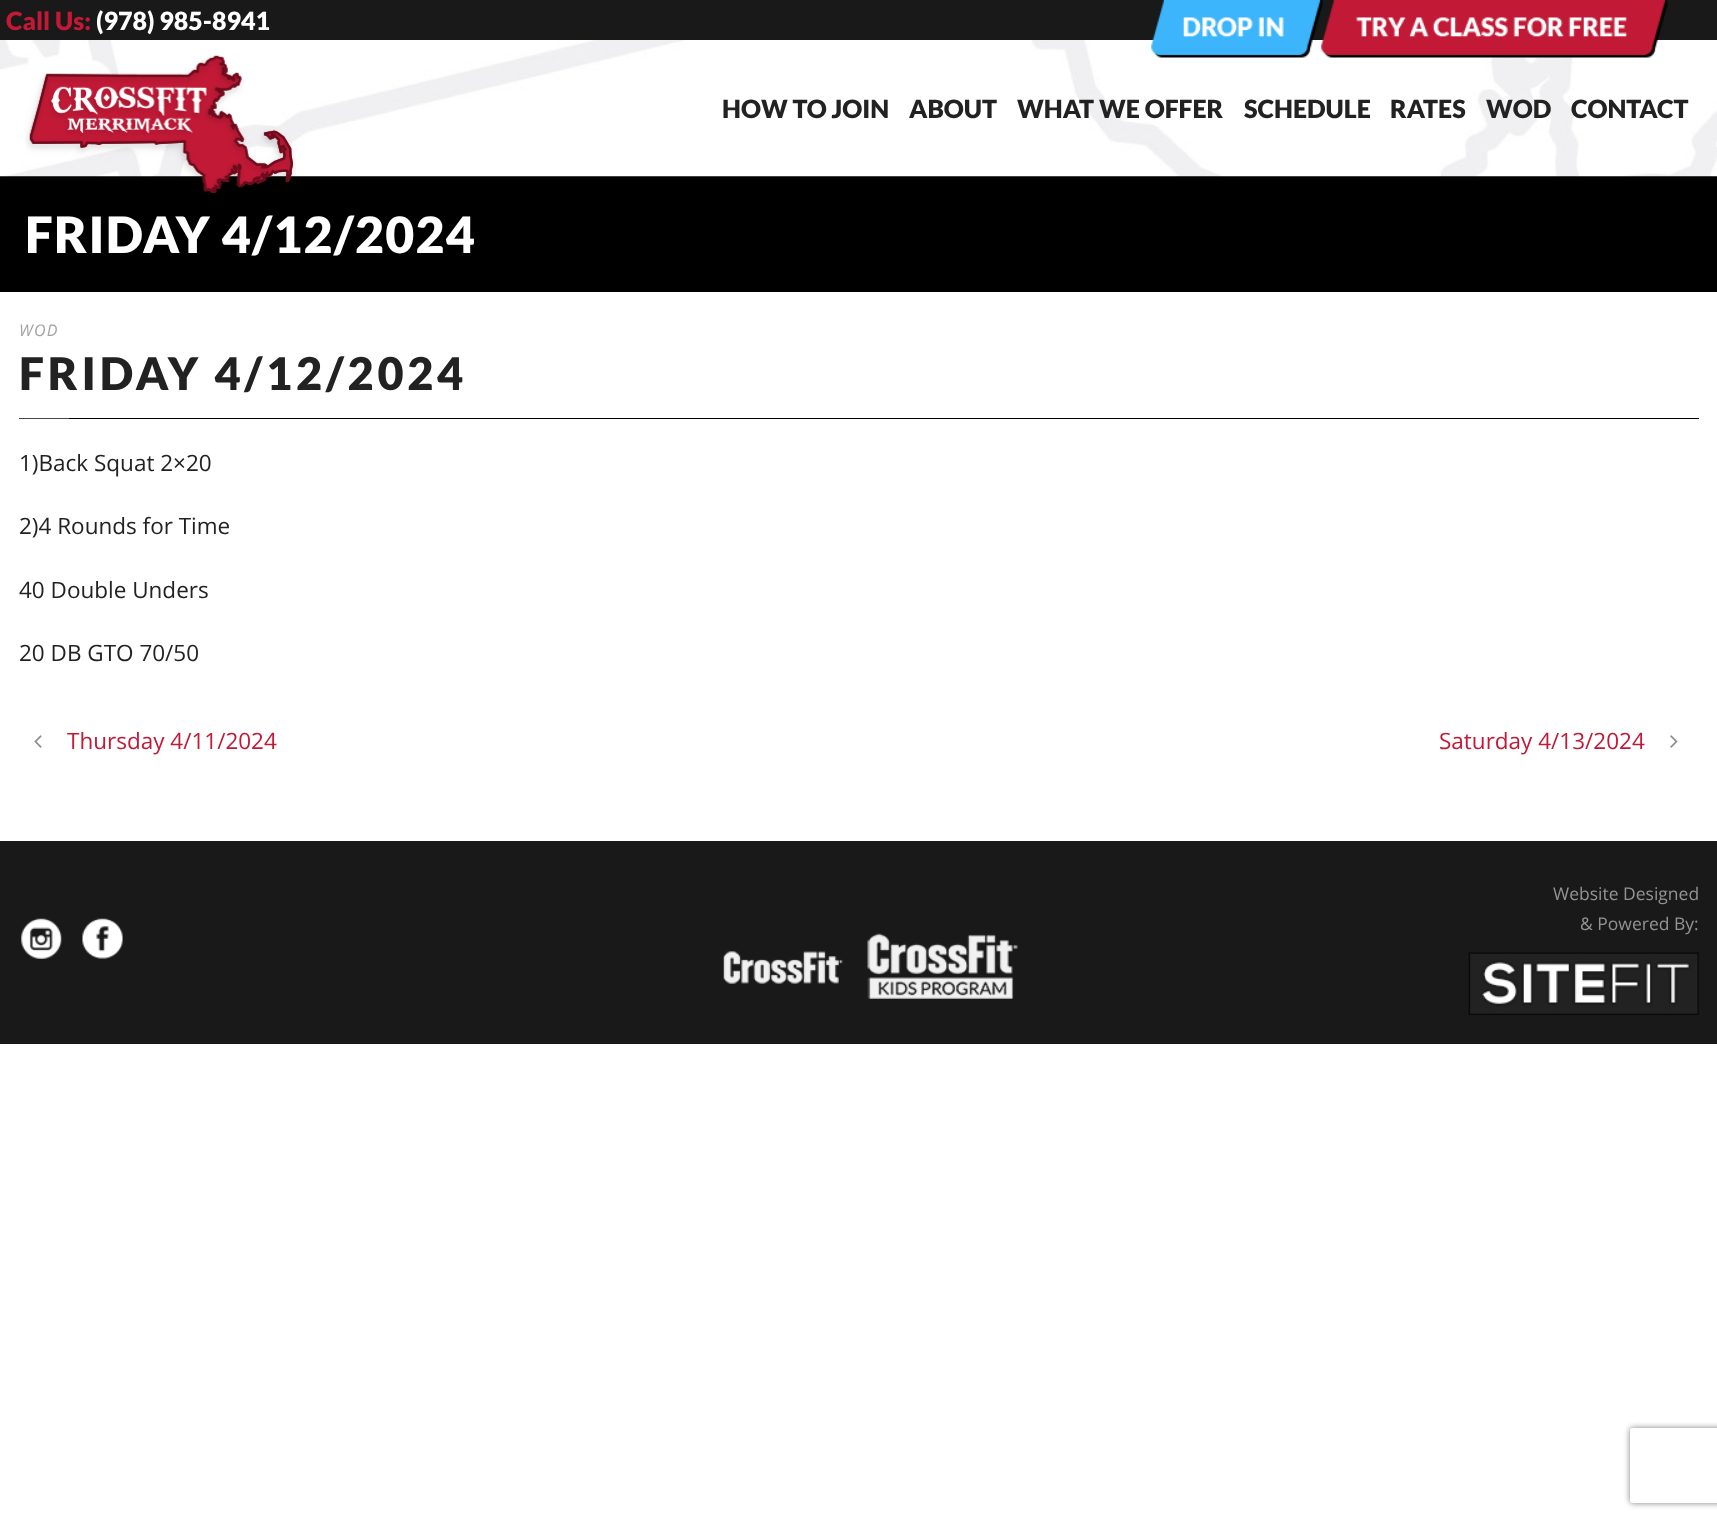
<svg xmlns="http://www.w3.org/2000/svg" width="1717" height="1519">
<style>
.a{font:900 25px Lato;fill:#c11936}
.b{font:900 25px Lato;fill:#fff}
.c{font:900 25px Lato;fill:#222}
.d{font:900 50px Lato;letter-spacing:1.25px;fill:#fff}
.e{font:italic 16px Open Sans;letter-spacing:1.25px;fill:#a3a3a3}
.f{font:900 45px Lato;letter-spacing:3.75px;fill:#222}
.g{font:22.5px Open Sans;fill:#222}
.h{font:22.5px Open Sans;fill:#c11936}
.i{font:17.5px Open Sans;fill:#939393}
</style>
<defs>
<clipPath id="clip1"><path d="M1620 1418h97v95h-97zm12.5 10h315c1.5 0 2.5 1 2.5 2.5v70c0 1.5-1 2.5-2.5 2.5h-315c-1.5 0-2.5-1-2.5-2.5v-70c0-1.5 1-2.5 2.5-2.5z" clip-rule="evenodd"/></clipPath>
</defs>
<rect width="100%" height="100%" fill="#fff"/>
<path fill="#191919" d="M0 0h1717v40H0z"/>
<path fill="#000" d="M0 176h1717v116H0z"/>
<image href="3.png" x="0" y="40" width="1717" height="137"/>
<image href="2.png" x="1321" y="0" width="347" height="58"/>
<image href="1.png" x="1151" y="0" width="172" height="58"/>
<image href="4.png" x="25" y="55" width="271" height="138"/>
<path fill="#000" d="M69 418h1630v1H69z"/>
<path fill="#464646" d="M19 418h50v1H19z"/>
<image href="5.png" x="34" y="735" width="8" height="13"/>
<image href="6.png" x="1670" y="735" width="8" height="13"/>
<path fill="#191919" d="M0 841h1717v202H0z"/>
<image href="7.png" x="21" y="918" width="41" height="41"/>
<image href="8.png" x="82" y="918" width="41" height="41"/>
<image href="9.png" x="723" y="951" width="120" height="33"/>
<image href="10.png" x="867" y="933" width="151" height="66"/>
<image href="11.png" x="1468" y="952" width="231" height="63"/>
<path fill="#161616" d="M0 1043h1717v1H0z"/>
<g clip-path="url(#clip1)">
<rect fill="#808080" filter="blur(3px)" x="1630" y="1428" width="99" height="75" rx="2.5"/>
</g>
<text class="a" x="6" y="30">Call Us:</text>
<text class="b" x="96" y="30">(978) 985-8941</text>
<text class="c" x="722" y="118">HOW TO JOIN</text>
<text class="c" x="909" y="118">ABOUT</text>
<text class="c" x="1017" y="118">WHAT WE OFFER</text>
<text class="c" x="1244" y="118">SCHEDULE</text>
<text class="c" x="1390" y="118">RATES</text>
<text class="c" x="1486" y="118">WOD</text>
<text class="c" x="1571" y="118">CONTACT</text>
<text class="d" x="25" y="253">FRIDAY 4/12/2024</text>
<text class="e" x="19" y="336">WOD</text>
<text class="f" x="19" y="390">FRIDAY 4/12/2024</text>
<text class="g" x="19" y="471">1)Back Squat 2×20</text>
<text class="g" x="19" y="534">2)4 Rounds for Time</text>
<text class="g" x="19" y="598">40 Double Unders</text>
<text class="g" x="19" y="661">20 DB GTO 70/50</text>
<text class="h" x="67" y="749">Thursday 4/11/2024</text>
<text class="h" x="1439" y="749">Saturday 4/13/2024</text>
<text class="i" x="1553" y="900">Website Designed</text>
<text class="i" x="1580" y="930">&amp; Powered By:</text>
</svg>
